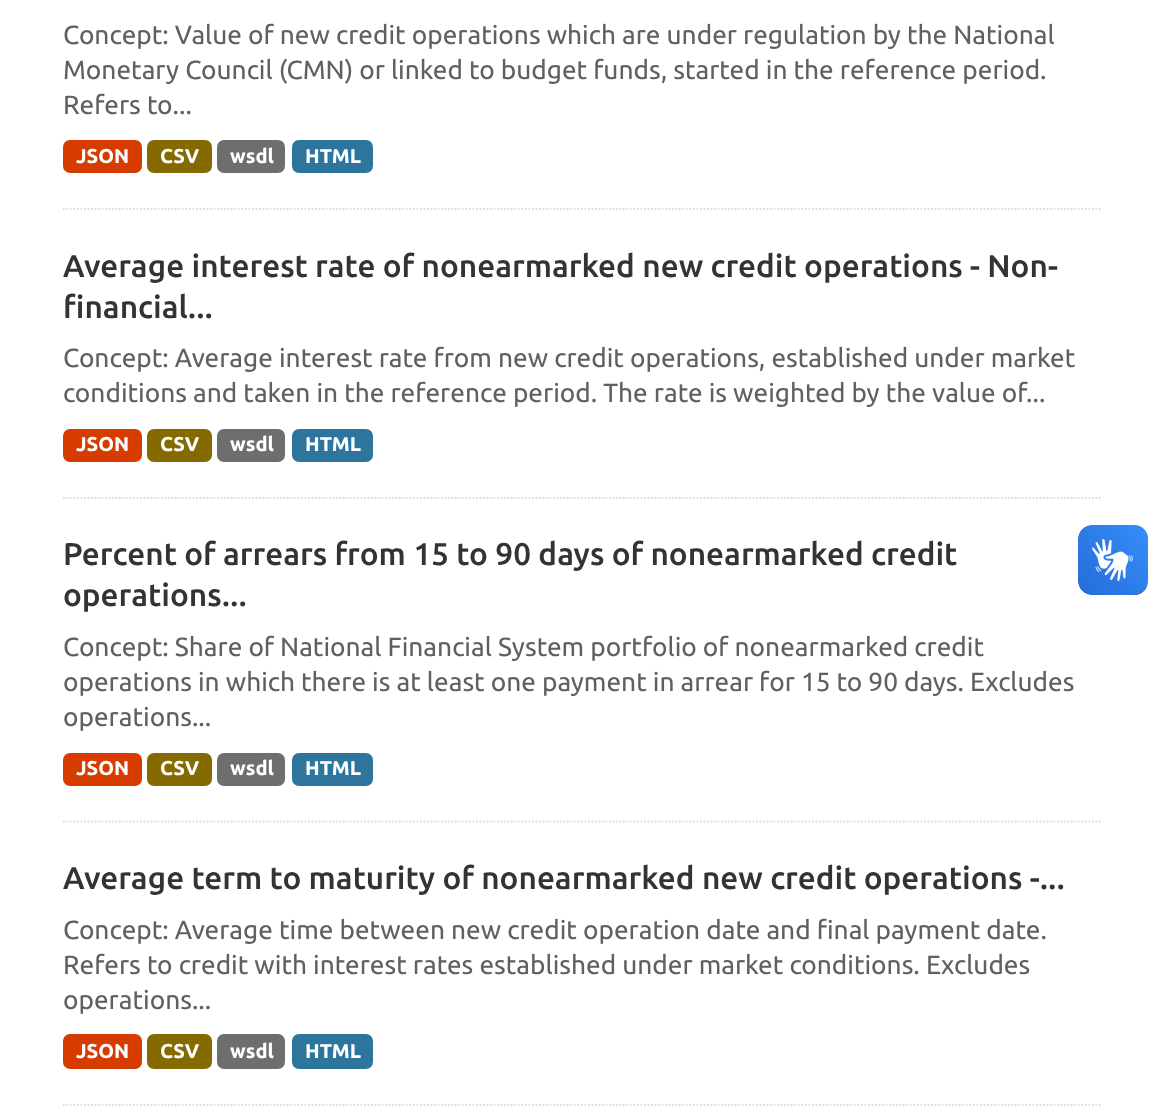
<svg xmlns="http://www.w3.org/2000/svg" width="1165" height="1118">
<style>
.a{font:26.25px Ubuntu;fill:#606060}
.b{font:bold 20px Ubuntu;fill:#fff}
.c{font:500 31.5px Ubuntu;fill:#333}
</style>
<rect width="100%" height="100%" fill="#fff"/>
<path fill="none" stroke="#ddd" stroke-width="1.8" stroke-dasharray="1.75 1.75" d="M63 209h1039.5"/>
<rect fill="#d63b00" x="63" y="140" width="79" height="33" rx="7"/>
<rect fill="#856a00" x="147" y="140" width="65" height="33" rx="7"/>
<rect fill="#6e6e6e" x="217" y="140" width="68" height="33" rx="7"/>
<rect fill="#2e759e" x="292" y="140" width="81" height="33" rx="7"/>
<path fill="none" stroke="#ddd" stroke-width="1.8" stroke-dasharray="1.75 1.75" d="M63 498h1039.5"/>
<rect fill="#d63b00" x="63" y="429" width="79" height="33" rx="7"/>
<rect fill="#856a00" x="147" y="429" width="65" height="33" rx="7"/>
<rect fill="#6e6e6e" x="217" y="429" width="68" height="33" rx="7"/>
<rect fill="#2e759e" x="292" y="429" width="81" height="33" rx="7"/>
<path fill="none" stroke="#ddd" stroke-width="1.8" stroke-dasharray="1.75 1.75" d="M63 821.5h1039.5"/>
<rect fill="#d63b00" x="63" y="753" width="79" height="33" rx="7"/>
<rect fill="#856a00" x="147" y="753" width="65" height="33" rx="7"/>
<rect fill="#6e6e6e" x="217" y="753" width="68" height="33" rx="7"/>
<rect fill="#2e759e" x="292" y="753" width="81" height="33" rx="7"/>
<path fill="none" stroke="#ddd" stroke-width="1.8" stroke-dasharray="1.75 1.75" d="M63 1105h1039.5"/>
<rect fill="#d63b00" x="63" y="1034" width="79" height="35" rx="7"/>
<rect fill="#856a00" x="147" y="1034" width="65" height="35" rx="7"/>
<rect fill="#6e6e6e" x="217" y="1034" width="68" height="35" rx="7"/>
<rect fill="#2e759e" x="292" y="1034" width="81" height="35" rx="7"/>
<image href="1.png" x="1078" y="525" width="70" height="70"/>
<image href="2.png" x="1078" y="525" width="70" height="70"/>
<text class="a" x="63" y="44">Concept: Value of new credit operations which are under regulation by the National</text>
<text class="a" x="63" y="79">Monetary Council (CMN) or linked to budget funds, started in the reference period.</text>
<text class="a" x="63" y="114">Refers to...</text>
<text class="b" x="76" y="163">JSON</text>
<text class="b" x="160" y="163">CSV</text>
<text class="b" x="230" y="163">wsdl</text>
<text class="b" x="305" y="163">HTML</text>
<text class="c" x="63" y="277">Average interest rate of nonearmarked new credit operations - Non-</text>
<text class="c" x="63" y="318">financial...</text>
<text class="a" x="63" y="367">Concept: Average interest rate from new credit operations, established under market</text>
<text class="a" x="63" y="402">conditions and taken in the reference period. The rate is weighted by the value of...</text>
<text class="b" x="76" y="451">JSON</text>
<text class="b" x="160" y="451">CSV</text>
<text class="b" x="230" y="451">wsdl</text>
<text class="b" x="305" y="451">HTML</text>
<text class="c" x="63" y="565">Percent of arrears from 15 to 90 days of nonearmarked credit</text>
<text class="c" x="63" y="606">operations...</text>
<text class="a" x="63" y="656">Concept: Share of National Financial System portfolio of nonearmarked credit</text>
<text class="a" x="63" y="691">operations in which there is at least one payment in arrear for 15 to 90 days. Excludes</text>
<text class="a" x="63" y="726">operations...</text>
<text class="b" x="76" y="775">JSON</text>
<text class="b" x="160" y="775">CSV</text>
<text class="b" x="230" y="775">wsdl</text>
<text class="b" x="305" y="775">HTML</text>
<text class="c" x="63" y="889">Average term to maturity of nonearmarked new credit operations -...</text>
<text class="a" x="63" y="939">Concept: Average time between new credit operation date and final payment date.</text>
<text class="a" x="63" y="974">Refers to credit with interest rates established under market conditions. Excludes</text>
<text class="a" x="63" y="1009">operations...</text>
<text class="b" x="76" y="1058">JSON</text>
<text class="b" x="160" y="1058">CSV</text>
<text class="b" x="230" y="1058">wsdl</text>
<text class="b" x="305" y="1058">HTML</text>
</svg>
